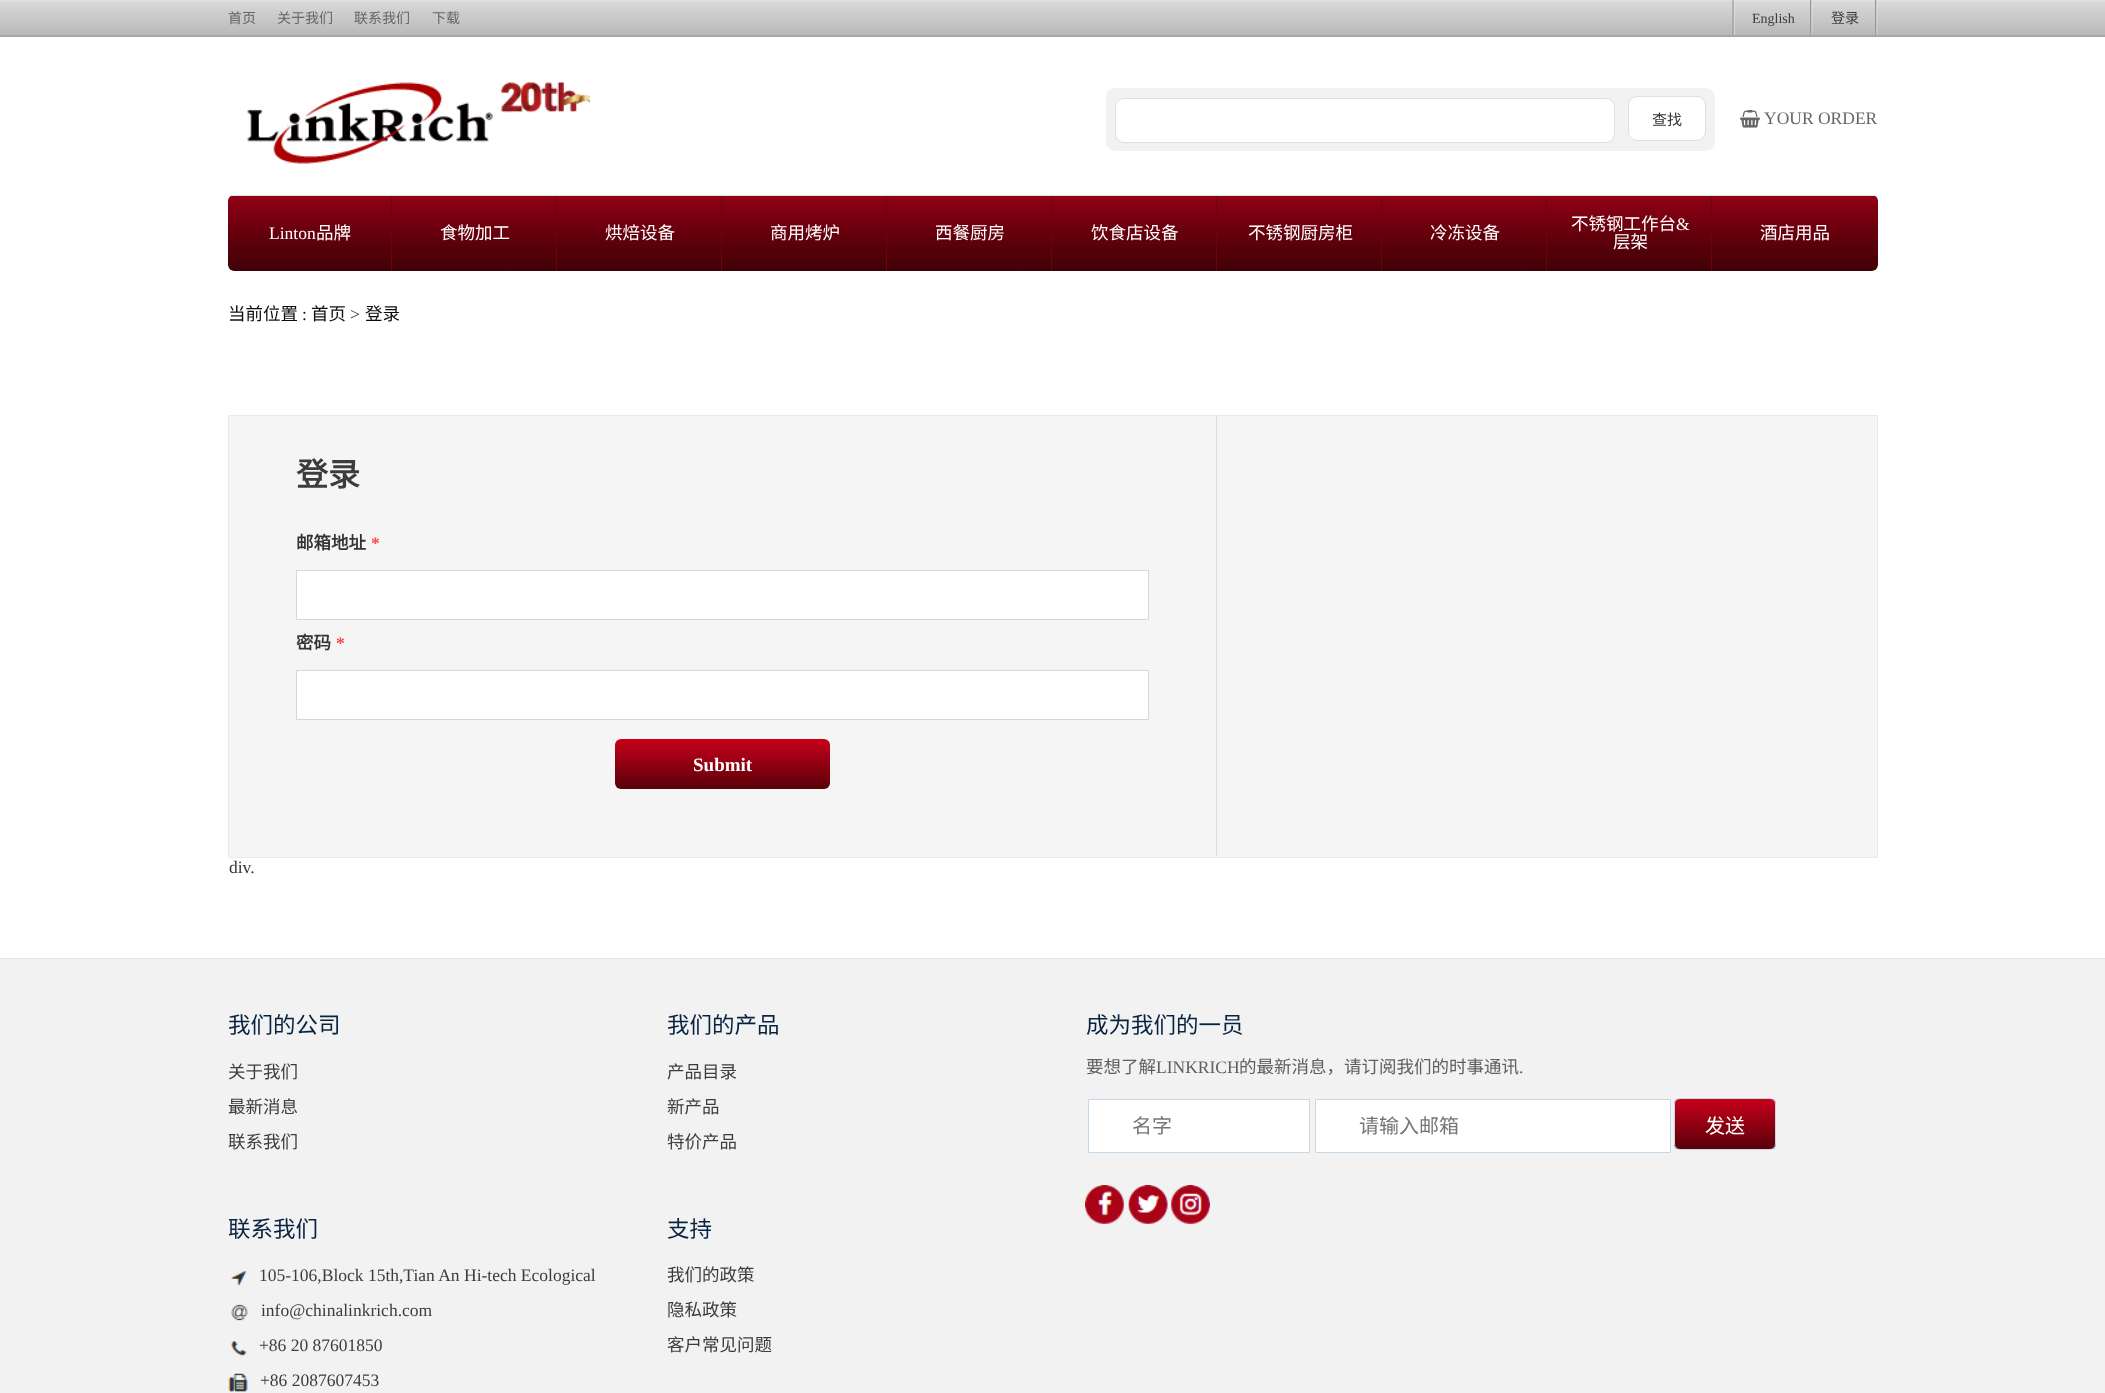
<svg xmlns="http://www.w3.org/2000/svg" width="2105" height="1393">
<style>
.a{font:14px Noto Sans CJK SC;fill:#666}
.b{font:14px Liberation Serif;fill:#3b3d3b}
.c{font:14px Noto Sans CJK SC;fill:#3b3d3b}
.d{font:15px Noto Sans CJK SC;fill:#333}
.e{font:17.5px Liberation Serif;fill:#666}
.f{font:17.5px Liberation Serif;fill:#fff}
.g{font:17.5px Noto Sans CJK SC;fill:#fff}
.h{font:17.5px Noto Sans CJK SC;fill:#0d0d0d}
.i{font:17.5px Liberation Serif;fill:#0d0d0d}
.j{font:17.5px Liberation Serif;fill:#333}
.k{font:bold 32px Noto Sans CJK SC;fill:#3b3d3b}
.l{font:bold 17.5px Noto Sans CJK SC;fill:#333}
.m{font:bold 17.5px Liberation Serif;fill:#ff4149}
.n{font:bold 19px Liberation Serif;fill:#fff}
.o{font:22.5px Noto Sans CJK SC;fill:#072340}
.p{font:17.5px Noto Sans CJK SC;fill:#3b3d3b}
.q{font:17.5px Liberation Serif;fill:#3b3d3b}
.r{font:17.5px Noto Sans CJK SC;fill:#5f5f5f}
.s{font:17.5px Liberation Serif;fill:#5f5f5f}
.t{font:20px Noto Sans CJK SC;fill:#757575}
.u{font:20px Noto Sans CJK SC;fill:#fff}
</style>
<defs>
<clipPath id="clip1"><rect x="228" y="195" width="1650" height="76" rx="6"/></clipPath>
<linearGradient id="g1" gradientUnits="userSpaceOnUse" x1="1053" y1="196" x2="1053" y2="271"><stop offset="0" stop-color="#910016"/><stop offset="0.5" stop-color="#66000c"/><stop offset="1" stop-color="#400107"/></linearGradient>
<linearGradient id="g2" gradientUnits="userSpaceOnUse" x1="723" y1="739" x2="723" y2="789"><stop offset="0" stop-color="#c8001a"/><stop offset="1" stop-color="#59010a"/></linearGradient>
<clipPath id="clip2"><rect x="1674" y="1098" width="102" height="52" rx="6"/></clipPath>
<linearGradient id="g3" gradientUnits="userSpaceOnUse" x1="1725" y1="1099" x2="1725" y2="1149"><stop offset="0" stop-color="#c8001a"/><stop offset="1" stop-color="#59010a"/></linearGradient>
</defs>
<rect width="100%" height="100%" fill="#fff"/>
<image href="1.png" x="0" y="0" width="2105" height="36"/>
<path fill="#a6a6a6" d="M0 36h2105v1H0z"/>
<image href="2.png" x="1732" y="0" width="3" height="35"/>
<image href="3.png" x="1810" y="0" width="3" height="35"/>
<image href="3.png" x="1875" y="0" width="3" height="35"/>
<image href="4.png" x="247" y="82" width="344" height="82"/>
<rect fill="#f2f2f2" x="1106" y="88" width="609" height="63" rx="9"/>
<rect fill="#fff" stroke="#dfdfdf" x="1115.5" y="98.5" width="499" height="44" rx="8.5"/>
<rect fill="#fff" stroke="#dfdfdf" x="1628.5" y="96.5" width="77" height="44" rx="8.5"/>
<image href="5.png" x="1740" y="110" width="20" height="18"/>
<g clip-path="url(#clip1)">
<path fill="url(#g1)" d="M228 196h1650v69c0 3.5-2.5 6-6 6h-1638c-3.5 0-6-2.5-6-6z"/>
</g>
<path fill="#e2e2e2" d="M231 195h1644v1H231z"/>
<path fill="#6b0310" d="M391 196h1v75H391z"/>
<path fill="#6b0310" d="M556 196h1v75H556z"/>
<path fill="#6b0310" d="M721 196h1v75H721z"/>
<path fill="#6b0310" d="M886 196h1v75H886z"/>
<path fill="#6b0310" d="M1051 196h1v75H1051z"/>
<path fill="#6b0310" d="M1216 196h1v75H1216z"/>
<path fill="#6b0310" d="M1381 196h1v75H1381z"/>
<path fill="#6b0310" d="M1546 196h1v75H1546z"/>
<path fill="#6b0310" d="M1711 196h1v75H1711z"/>
<path fill="#f5f5f5" stroke="#e9e9e9" d="M228.5 415.5h1649v442H228.5z"/>
<path fill="#ddd" d="M1216 416h1v440H1216z"/>
<path fill="#fff" stroke="#d7d7d7" d="M296.5 570.5h852v49H296.5z"/>
<path fill="#fff" stroke="#d7d7d7" d="M296.5 670.5h852v49H296.5z"/>
<rect fill="url(#g2)" x="615" y="739" width="215" height="50" rx="6"/>
<path fill="#f2f2f2" d="M0 959h2105v434H0z"/>
<path fill="#e1e4eb" d="M0 958h2105v1H0z"/>
<image href="6.png" x="231" y="1271" width="16" height="15"/>
<image href="7.png" x="231" y="1304" width="17" height="17"/>
<image href="8.png" x="231" y="1341" width="16" height="15"/>
<image href="9.png" x="228" y="1373" width="20" height="19"/>
<path fill="#fff" stroke="#c5d8e9" d="M1088.5 1099.5h221v53H1088.5z"/>
<path fill="#fff" stroke="#c5d8e9" d="M1315.5 1099.5h355v53H1315.5z"/>
<g clip-path="url(#clip2)">
<path fill="url(#g3)" d="M1674 1099h102v50H1674z"/>
</g>
<rect fill="none" stroke="#c5d8e9" x="1674.5" y="1098.5" width="101" height="51" rx="5.5"/>
<image href="10.png" x="1085" y="1185" width="39" height="39"/>
<image href="11.png" x="1128" y="1185" width="40" height="39"/>
<image href="12.png" x="1171" y="1185" width="39" height="39"/>
<text class="a" x="228" y="23">首页</text>
<text class="a" x="277" y="23">关于我们</text>
<text class="a" x="354" y="23">联系我们</text>
<text class="a" x="432" y="23">下载</text>
<text class="b" x="1752" y="23">English</text>
<text class="c" x="1831" y="23">登录</text>
<text class="d" x="1652" y="125">查找</text>
<text class="e" x="1764" y="124">YOUR ORDER</text>
<text class="f" x="269" y="239">Linton</text>
<text class="g" x="316" y="239">品牌</text>
<text class="g" x="440" y="239">食物加工</text>
<text class="g" x="605" y="239">烘焙设备</text>
<text class="g" x="770" y="239">商用烤炉</text>
<text class="g" x="935" y="239">西餐厨房</text>
<text class="g" x="1091" y="239">饮食店设备</text>
<text class="g" x="1248" y="239">不锈钢厨房柜</text>
<text class="g" x="1430" y="239">冷冻设备</text>
<text class="g" x="1571" y="230">不锈钢工作台</text>
<text class="f" x="1676" y="230">&amp;</text>
<text class="g" x="1613" y="248">层架</text>
<text class="g" x="1760" y="239">酒店用品</text>
<text class="h" x="228" y="320">当前位置</text>
<text class="i" x="302" y="320">:</text>
<text class="h" x="311" y="320">首页</text>
<text class="j" x="350" y="320">&gt;</text>
<text class="h" x="365" y="320">登录</text>
<text class="k" x="296" y="486">登录</text>
<text class="l" x="296" y="549">邮箱地址</text>
<text class="m" x="371" y="549">*</text>
<text class="l" x="296" y="649">密码</text>
<text class="m" x="336" y="649">*</text>
<text class="n" x="693" y="771">Submit</text>
<text class="j" x="229" y="873">div.</text>
<text class="o" x="228" y="1033">我们的公司</text>
<text class="p" x="228" y="1078">关于我们</text>
<text class="p" x="228" y="1113">最新消息</text>
<text class="p" x="228" y="1148">联系我们</text>
<text class="o" x="667" y="1033">我们的产品</text>
<text class="p" x="667" y="1078">产品目录</text>
<text class="p" x="667" y="1113">新产品</text>
<text class="p" x="667" y="1148">特价产品</text>
<text class="o" x="228" y="1237">联系我们</text>
<text class="q" x="259" y="1281">105-106,Block 15th,Tian An Hi-tech Ecological</text>
<text class="q" x="261" y="1316">info@chinalinkrich.com</text>
<text class="q" x="259" y="1351">+86 20 87601850</text>
<text class="q" x="260" y="1386">+86 2087607453</text>
<text class="o" x="667" y="1237">支持</text>
<text class="p" x="667" y="1281">我们的政策</text>
<text class="p" x="667" y="1316">隐私政策</text>
<text class="p" x="667" y="1351">客户常见问题</text>
<text class="o" x="1086" y="1033">成为我们的一员</text>
<text class="r" x="1086" y="1073">要想了解</text>
<text class="s" x="1156" y="1073">LINKRICH</text>
<text class="r" x="1239" y="1073">的最新消息，请订阅我们的时事通讯</text>
<text class="s" x="1519" y="1073">.</text>
<text class="t" x="1132" y="1133">名字</text>
<text class="t" x="1359" y="1133">请输入邮箱</text>
<text class="u" x="1705" y="1133">发送</text>
</svg>
